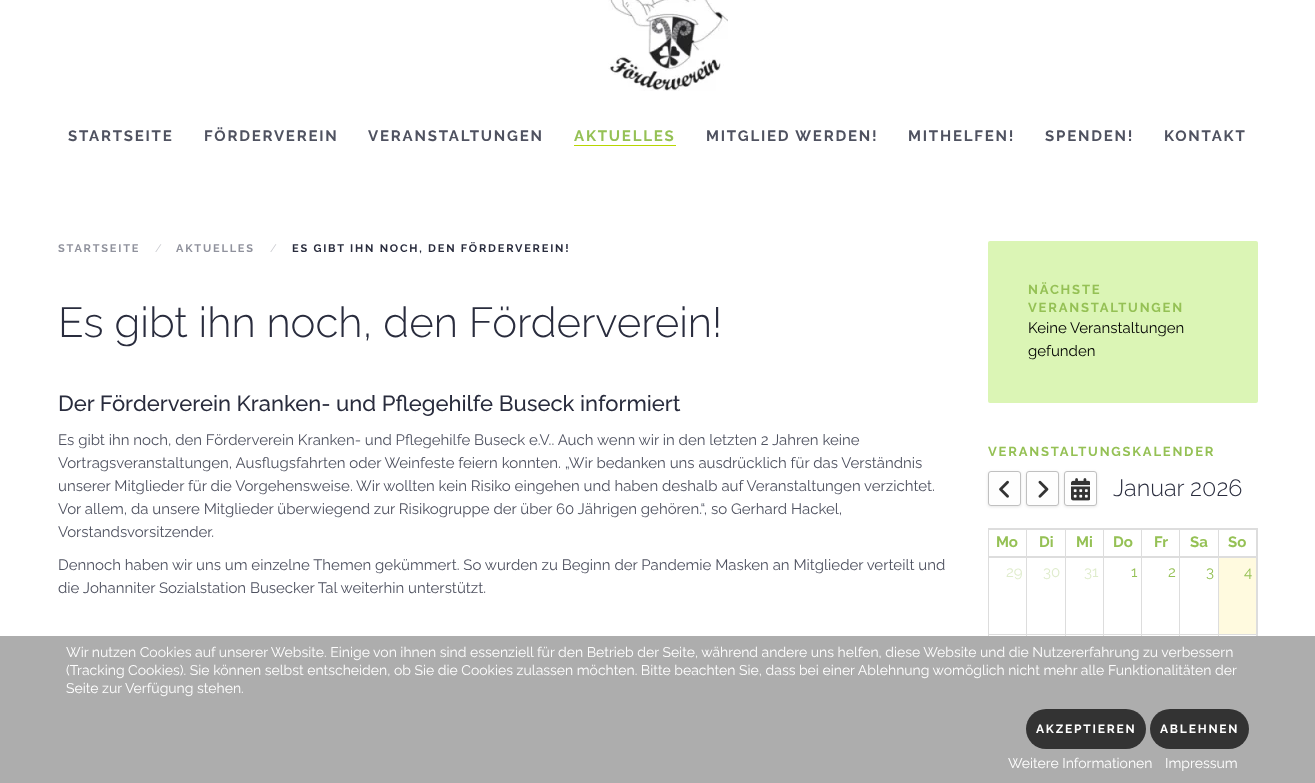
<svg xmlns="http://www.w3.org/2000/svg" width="1315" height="783">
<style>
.a{font:100 15px Raleway;letter-spacing:1.8px;fill:#4f5260}
.b{font:100 15px Raleway;letter-spacing:1.8px;fill:#95c155}
.c{font:100 11px Raleway;letter-spacing:1.8px;fill:#90929d}
.d{font:100 11px 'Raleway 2';fill:#c8c9ce}
.e{font:100 11px Raleway;letter-spacing:1.8px;fill:#292c3d}
.f{font:100 42px 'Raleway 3';fill:#292c3d}
.g{font:100 22px 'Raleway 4';fill:#292c3d}
.h{font:100 15px 'Raleway 2';fill:#4f5260}
.i{font:100 13px Raleway;letter-spacing:1.8px;fill:#95c155}
.j{font:100 15px 'Raleway 2';fill:#000}
.k{font:100 23.5px 'Raleway 3';fill:#292c3d}
.l{font:100 15px Raleway;fill:#95c155}
.m{font:100 15px 'Raleway 2';fill:#dfeccc}
.n{font:100 15px 'Raleway 2';fill:#95c155}
.o{font:100 14px 'Raleway 2';fill:#fff}
.p{font:100 12px Raleway;letter-spacing:1.8px;fill:#fff}
</style>
<rect width="100%" height="100%" fill="#fff"/>
<image href="1.png" x="608" y="0" width="120" height="91"/>
<path fill="#b8d600" d="M574 145h102v1H574z"/>
<rect fill="#dbf5b5" x="988" y="241" width="270" height="162" rx="2"/>
<rect fill="#0000001a" filter="blur(1.5px)" x="988" y="472" width="33" height="35" rx="3"/>
<rect fill="#fefefe" stroke="#c0c0c0" x="988.5" y="471.5" width="32" height="34" rx="2.5"/>
<image href="2.png" x="999" y="480" width="10" height="18"/>
<rect fill="#0000001a" filter="blur(1.5px)" x="1026" y="472" width="33" height="35" rx="3"/>
<rect fill="#fefefe" stroke="#c0c0c0" x="1026.5" y="471.5" width="32" height="34" rx="2.5"/>
<image href="3.png" x="1038" y="480" width="11" height="18"/>
<rect fill="#0000001a" filter="blur(1.5px)" x="1064" y="472" width="33" height="35" rx="3"/>
<rect fill="#fefefe" stroke="#c0c0c0" x="1064.5" y="471.5" width="32" height="34" rx="2.5"/>
<image href="4.png" x="1071" y="478" width="19" height="23"/>
<path fill="#ddd" d="M988 528h270v1H988z"/>
<path fill="#ddd" d="M988 528h1v108H988z"/>
<path fill="#ddd" d="M1218 529h39v1H1218z"/>
<path fill="#ddd" d="M1256 529h1v28H1256z"/>
<path fill="#ddd" d="M1218 556h39v1H1218z"/>
<path fill="#ddd" d="M1218 529h1v28H1218z"/>
<path fill="#ddd" d="M1179 529h40v1H1179z"/>
<path fill="#ddd" d="M1179 556h40v1H1179z"/>
<path fill="#ddd" d="M1179 529h1v28H1179z"/>
<path fill="#ddd" d="M1141 529h39v1H1141z"/>
<path fill="#ddd" d="M1141 556h39v1H1141z"/>
<path fill="#ddd" d="M1141 529h1v28H1141z"/>
<path fill="#ddd" d="M1103 529h39v1H1103z"/>
<path fill="#ddd" d="M1103 556h39v1H1103z"/>
<path fill="#ddd" d="M1103 529h1v28H1103z"/>
<path fill="#ddd" d="M1065 529h39v1H1065z"/>
<path fill="#ddd" d="M1065 556h39v1H1065z"/>
<path fill="#ddd" d="M1065 529h1v28H1065z"/>
<path fill="#ddd" d="M1026 529h40v1H1026z"/>
<path fill="#ddd" d="M1026 556h40v1H1026z"/>
<path fill="#ddd" d="M1026 529h1v28H1026z"/>
<path fill="#ddd" d="M989 529h38v1H989z"/>
<path fill="#ddd" d="M989 556h38v1H989z"/>
<path fill="#ddd" d="M1257 529h1v107H1257z"/>
<path fill="#ddd" d="M1218 557h39v1H1218z"/>
<path fill="#ddd" d="M1218 634h39v1H1218z"/>
<path fill="#ddd" d="M1218 634h1v2H1218z"/>
<path fill="#ddd" d="M1179 634h40v1H1179z"/>
<path fill="#ddd" d="M1218 557h1v78H1218z"/>
<path fill="#ddd" d="M1179 557h40v1H1179z"/>
<path fill="#ddd" d="M1179 634h1v2H1179z"/>
<path fill="#ddd" d="M1141 634h39v1H1141z"/>
<path fill="#ddd" d="M1179 557h1v78H1179z"/>
<path fill="#ddd" d="M1141 557h39v1H1141z"/>
<path fill="#ddd" d="M1141 634h1v2H1141z"/>
<path fill="#ddd" d="M1103 634h39v1H1103z"/>
<path fill="#ddd" d="M1141 557h1v78H1141z"/>
<path fill="#ddd" d="M1103 557h39v1H1103z"/>
<path fill="#ddd" d="M1103 634h1v2H1103z"/>
<path fill="#ddd" d="M1065 634h39v1H1065z"/>
<path fill="#ddd" d="M1103 557h1v78H1103z"/>
<path fill="#ddd" d="M1065 557h39v1H1065z"/>
<path fill="#ddd" d="M1065 634h1v2H1065z"/>
<path fill="#ddd" d="M1026 634h40v1H1026z"/>
<path fill="#ddd" d="M1065 557h1v78H1065z"/>
<path fill="#ddd" d="M1026 557h40v1H1026z"/>
<path fill="#ddd" d="M1026 634h1v2H1026z"/>
<path fill="#ddd" d="M989 634h38v1H989z"/>
<path fill="#ddd" d="M1026 557h1v78H1026z"/>
<path fill="#ddd" d="M989 557h38v1H989z"/>
<path fill="#fffadf" d="M1219 558h37v76H1219z"/>
<path fill="#ddd" d="M1256 634h1v2H1256z"/>
<path fill="#ddd" d="M1256 557h1v78H1256z"/>
<path fill="#adadad" d="M0 636h1315v147H0z"/>
<rect fill="#333" x="1026" y="709" width="120" height="40" rx="20"/>
<rect fill="#333" x="1150" y="709" width="99" height="40" rx="20"/>
<text class="a" x="68" y="141">STARTSEITE</text>
<text class="a" x="204" y="141">FÖRDERVEREIN</text>
<text class="a" x="368" y="141">VERANSTALTUNGEN</text>
<text class="b" x="574" y="141">AKTUELLES</text>
<text class="a" x="706" y="141">MITGLIED WERDEN!</text>
<text class="a" x="908" y="141">MITHELFEN!</text>
<text class="a" x="1045" y="141">SPENDEN!</text>
<text class="a" x="1164" y="141">KONTAKT</text>
<text class="c" x="58" y="252">STARTSEITE</text>
<text class="d" x="155" y="252">/</text>
<text class="c" x="176" y="252">AKTUELLES</text>
<text class="d" x="270" y="252">/</text>
<text class="e" x="292" y="252">ES GIBT IHN NOCH, DEN FÖRDERVEREIN!</text>
<text class="f" x="58" y="337">Es gibt ihn noch, den Förderverein!</text>
<text class="g" x="58" y="411">Der Förderverein Kranken- und Pflegehilfe Buseck informiert</text>
<text class="h" x="58" y="445">Es gibt ihn noch, den Förderverein Kranken- und Pflegehilfe Buseck e.V.. Auch wenn wir in den letzten 2 Jahren keine</text>
<text class="h" x="58" y="468">Vortragsveranstaltungen, Ausflugsfahrten oder Weinfeste feiern konnten. „Wir bedanken uns ausdrücklich für das Verständnis</text>
<text class="h" x="58" y="491">unserer Mitglieder für die Vorgehensweise. Wir wollten kein Risiko eingehen und haben deshalb auf Veranstaltungen verzichtet.</text>
<text class="h" x="58" y="514">Vor allem, da unsere Mitglieder überwiegend zur Risikogruppe der über 60 Jährigen gehören.“, so Gerhard Hackel,</text>
<text class="h" x="58" y="537">Vorstandsvorsitzender.</text>
<text class="h" x="58" y="570">Dennoch haben wir uns um einzelne Themen gekümmert. So wurden zu Beginn der Pandemie Masken an Mitglieder verteilt und</text>
<text class="h" x="58" y="593">die Johanniter Sozialstation Busecker Tal weiterhin unterstützt.</text>
<text class="i" x="1028" y="294">NÄCHSTE</text>
<text class="i" x="1028" y="312">VERANSTALTUNGEN</text>
<text class="j" x="1028" y="333">Keine Veranstaltungen</text>
<text class="j" x="1028" y="356">gefunden</text>
<text class="i" x="988" y="456">VERANSTALTUNGSKALENDER</text>
<text class="k" x="1113" y="496">Januar 2026</text>
<text class="l" x="996" y="547">Mo</text>
<text class="l" x="1039" y="547">Di</text>
<text class="l" x="1076" y="547">Mi</text>
<text class="l" x="1113" y="547">Do</text>
<text class="l" x="1154" y="547">Fr</text>
<text class="l" x="1190" y="547">Sa</text>
<text class="l" x="1228" y="547">So</text>
<text class="m" x="1006" y="577">29</text>
<text class="m" x="1043" y="577">30</text>
<text class="m" x="1084" y="577">31</text>
<text class="n" x="1131" y="577">1</text>
<text class="n" x="1168" y="577">2</text>
<text class="n" x="1206" y="577">3</text>
<text class="n" x="1244" y="577">4</text>
<text class="o" x="66" y="657">Wir nutzen Cookies auf unserer Website. Einige von ihnen sind essenziell für den Betrieb der Seite, während andere uns helfen, diese Website und die Nutzererfahrung zu verbessern</text>
<text class="o" x="66" y="675">(Tracking Cookies). Sie können selbst entscheiden, ob Sie die Cookies zulassen möchten. Bitte beachten Sie, dass bei einer Ablehnung womöglich nicht mehr alle Funktionalitäten der</text>
<text class="o" x="66" y="693">Seite zur Verfügung stehen.</text>
<text class="p" x="1036" y="733">AKZEPTIEREN</text>
<text class="p" x="1160" y="733">ABLEHNEN</text>
<text class="o" x="1008" y="768">Weitere Informationen</text>
<text class="o" x="1165" y="768">Impressum</text>
</svg>
